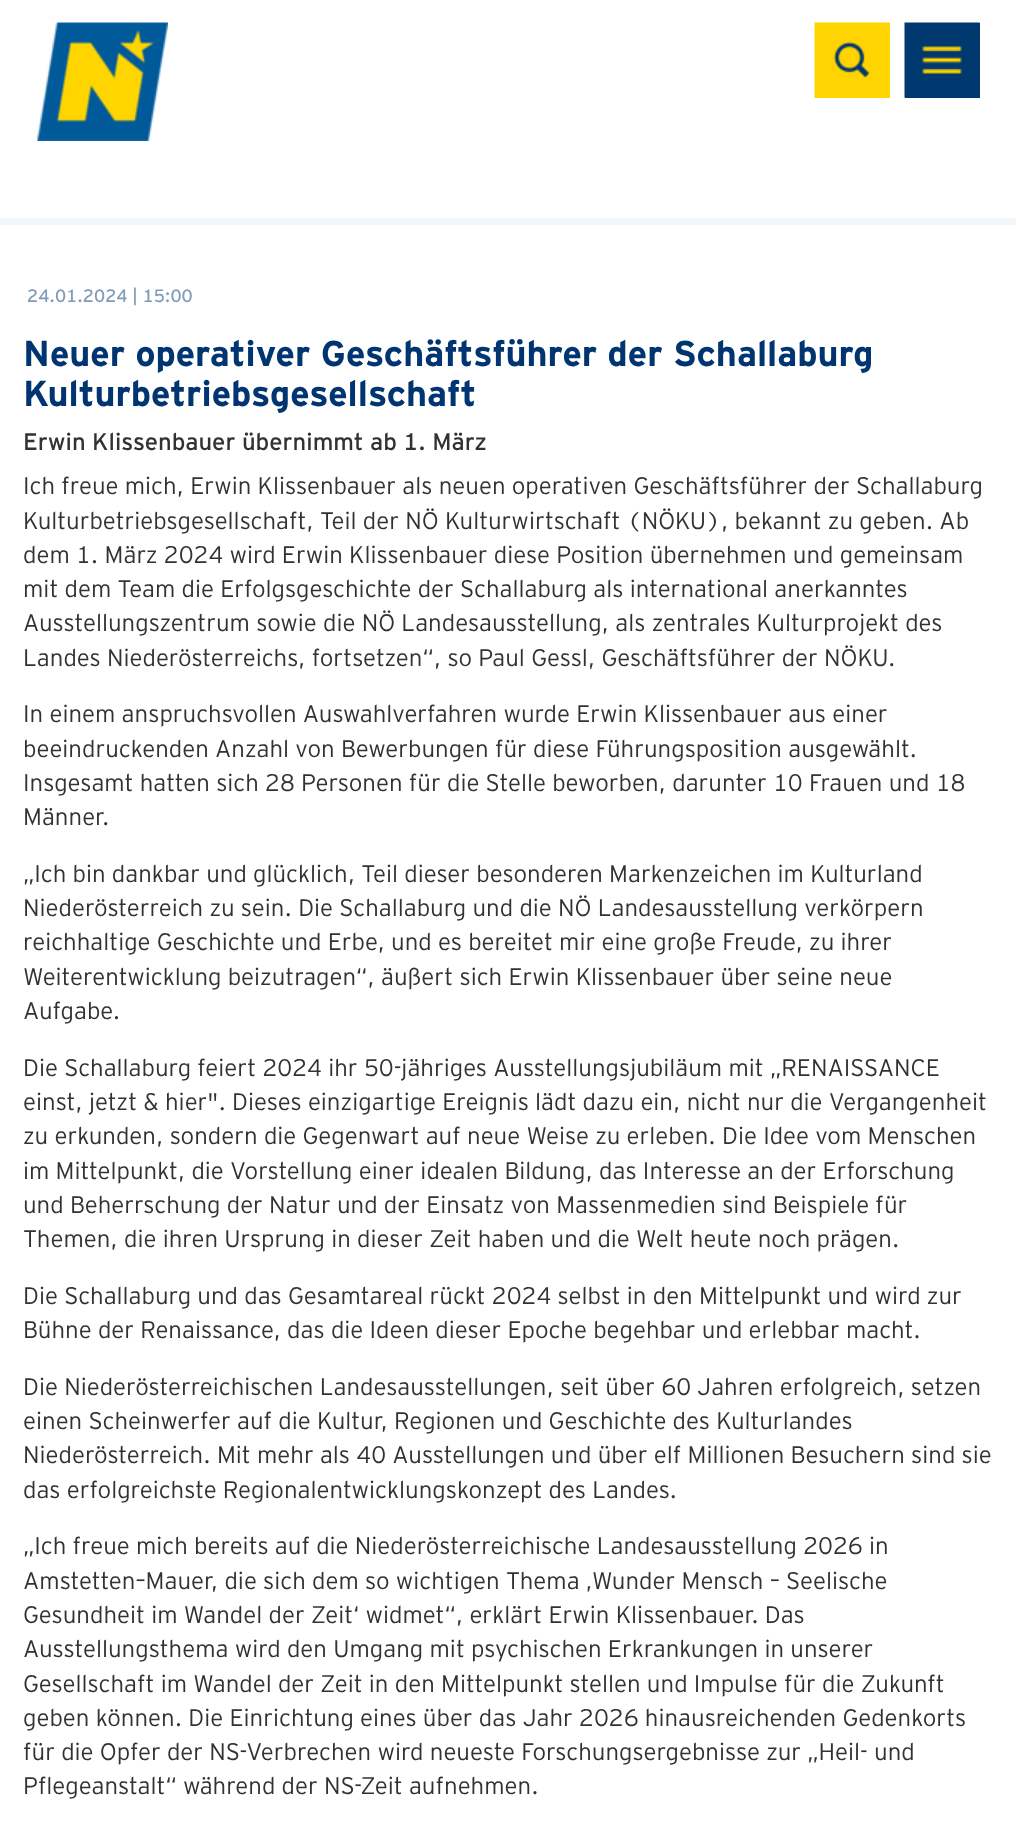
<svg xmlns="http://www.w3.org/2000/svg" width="1016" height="1834">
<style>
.a{font:18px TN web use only;fill:#809cb8}
.b{font:bold 36px TN web use only;fill:#003572}
.c{font:24px TN web use only;fill:#323232}
.d{font:300 24px TN web use only;fill:#323232}
</style>
<rect width="100%" height="100%" fill="#fff"/>
<path fill="#f2f6f9" d="M0 218h1016v7H0z"/>
<image href="1.png" x="37" y="22" width="131" height="119"/>
<path fill="#ffd500" d="M815 23h75v75H815z"/>
<image href="2.png" x="814" y="22" width="76" height="76"/>
<path fill="#003572" d="M905 23h75v75H905z"/>
<image href="3.png" x="904" y="22" width="76" height="76"/>
<text class="a" x="27" y="302">24.01.2024 | 15:00</text>
<text class="b" x="23" y="366">Neuer operativer Geschäftsführer der Schallaburg</text>
<text class="b" x="23" y="406">Kulturbetriebsgesellschaft</text>
<text class="c" x="23" y="450">Erwin Klissenbauer übernimmt ab 1. März</text>
<text class="d" x="23" y="494">Ich freue mich, Erwin Klissenbauer als neuen operativen Geschäftsführer der Schallaburg</text>
<text class="d" x="23" y="529">Kulturbetriebsgesellschaft, Teil der NÖ Kulturwirtschaft (NÖKU), bekannt zu geben. Ab</text>
<text class="d" x="23" y="563">dem 1. März 2024 wird Erwin Klissenbauer diese Position übernehmen und gemeinsam</text>
<text class="d" x="23" y="597">mit dem Team die Erfolgsgeschichte der Schallaburg als international anerkanntes</text>
<text class="d" x="23" y="631">Ausstellungszentrum sowie die NÖ Landesausstellung, als zentrales Kulturprojekt des</text>
<text class="d" x="23" y="666">Landes Niederösterreichs, fortsetzen“, so Paul Gessl, Geschäftsführer der NÖKU.</text>
<text class="d" x="23" y="722">In einem anspruchsvollen Auswahlverfahren wurde Erwin Klissenbauer aus einer</text>
<text class="d" x="23" y="757">beeindruckenden Anzahl von Bewerbungen für diese Führungsposition ausgewählt.</text>
<text class="d" x="23" y="791">Insgesamt hatten sich 28 Personen für die Stelle beworben, darunter 10 Frauen und 18</text>
<text class="d" x="23" y="825">Männer.</text>
<text class="d" x="23" y="882">„Ich bin dankbar und glücklich, Teil dieser besonderen Markenzeichen im Kulturland</text>
<text class="d" x="23" y="916">Niederösterreich zu sein. Die Schallaburg und die NÖ Landesausstellung verkörpern</text>
<text class="d" x="23" y="950">reichhaltige Geschichte und Erbe, und es bereitet mir eine große Freude, zu ihrer</text>
<text class="d" x="23" y="985">Weiterentwicklung beizutragen“, äußert sich Erwin Klissenbauer über seine neue</text>
<text class="d" x="23" y="1019">Aufgabe.</text>
<text class="d" x="23" y="1076">Die Schallaburg feiert 2024 ihr 50-jähriges Ausstellungsjubiläum mit „RENAISSANCE</text>
<text class="d" x="23" y="1110">einst, jetzt &amp; hier". Dieses einzigartige Ereignis lädt dazu ein, nicht nur die Vergangenheit</text>
<text class="d" x="23" y="1144">zu erkunden, sondern die Gegenwart auf neue Weise zu erleben. Die Idee vom Menschen</text>
<text class="d" x="23" y="1179">im Mittelpunkt, die Vorstellung einer idealen Bildung, das Interesse an der Erforschung</text>
<text class="d" x="23" y="1213">und Beherrschung der Natur und der Einsatz von Massenmedien sind Beispiele für</text>
<text class="d" x="23" y="1247">Themen, die ihren Ursprung in dieser Zeit haben und die Welt heute noch prägen.</text>
<text class="d" x="23" y="1304">Die Schallaburg und das Gesamtareal rückt 2024 selbst in den Mittelpunkt und wird zur</text>
<text class="d" x="23" y="1338">Bühne der Renaissance, das die Ideen dieser Epoche begehbar und erlebbar macht.</text>
<text class="d" x="23" y="1395">Die Niederösterreichischen Landesausstellungen, seit über 60 Jahren erfolgreich, setzen</text>
<text class="d" x="23" y="1429">einen Scheinwerfer auf die Kultur, Regionen und Geschichte des Kulturlandes</text>
<text class="d" x="23" y="1463">Niederösterreich. Mit mehr als 40 Ausstellungen und über elf Millionen Besuchern sind sie</text>
<text class="d" x="23" y="1498">das erfolgreichste Regionalentwicklungskonzept des Landes.</text>
<text class="d" x="23" y="1554">„Ich freue mich bereits auf die Niederösterreichische Landesausstellung 2026 in</text>
<text class="d" x="23" y="1589">Amstetten–Mauer, die sich dem so wichtigen Thema ‚Wunder Mensch – Seelische</text>
<text class="d" x="23" y="1623">Gesundheit im Wandel der Zeit‘ widmet“, erklärt Erwin Klissenbauer. Das</text>
<text class="d" x="23" y="1657">Ausstellungsthema wird den Umgang mit psychischen Erkrankungen in unserer</text>
<text class="d" x="23" y="1692">Gesellschaft im Wandel der Zeit in den Mittelpunkt stellen und Impulse für die Zukunft</text>
<text class="d" x="23" y="1726">geben können. Die Einrichtung eines über das Jahr 2026 hinausreichenden Gedenkorts</text>
<text class="d" x="23" y="1760">für die Opfer der NS-Verbrechen wird neueste Forschungsergebnisse zur „Heil- und</text>
<text class="d" x="23" y="1794">Pflegeanstalt“ während der NS-Zeit aufnehmen.</text>
</svg>
